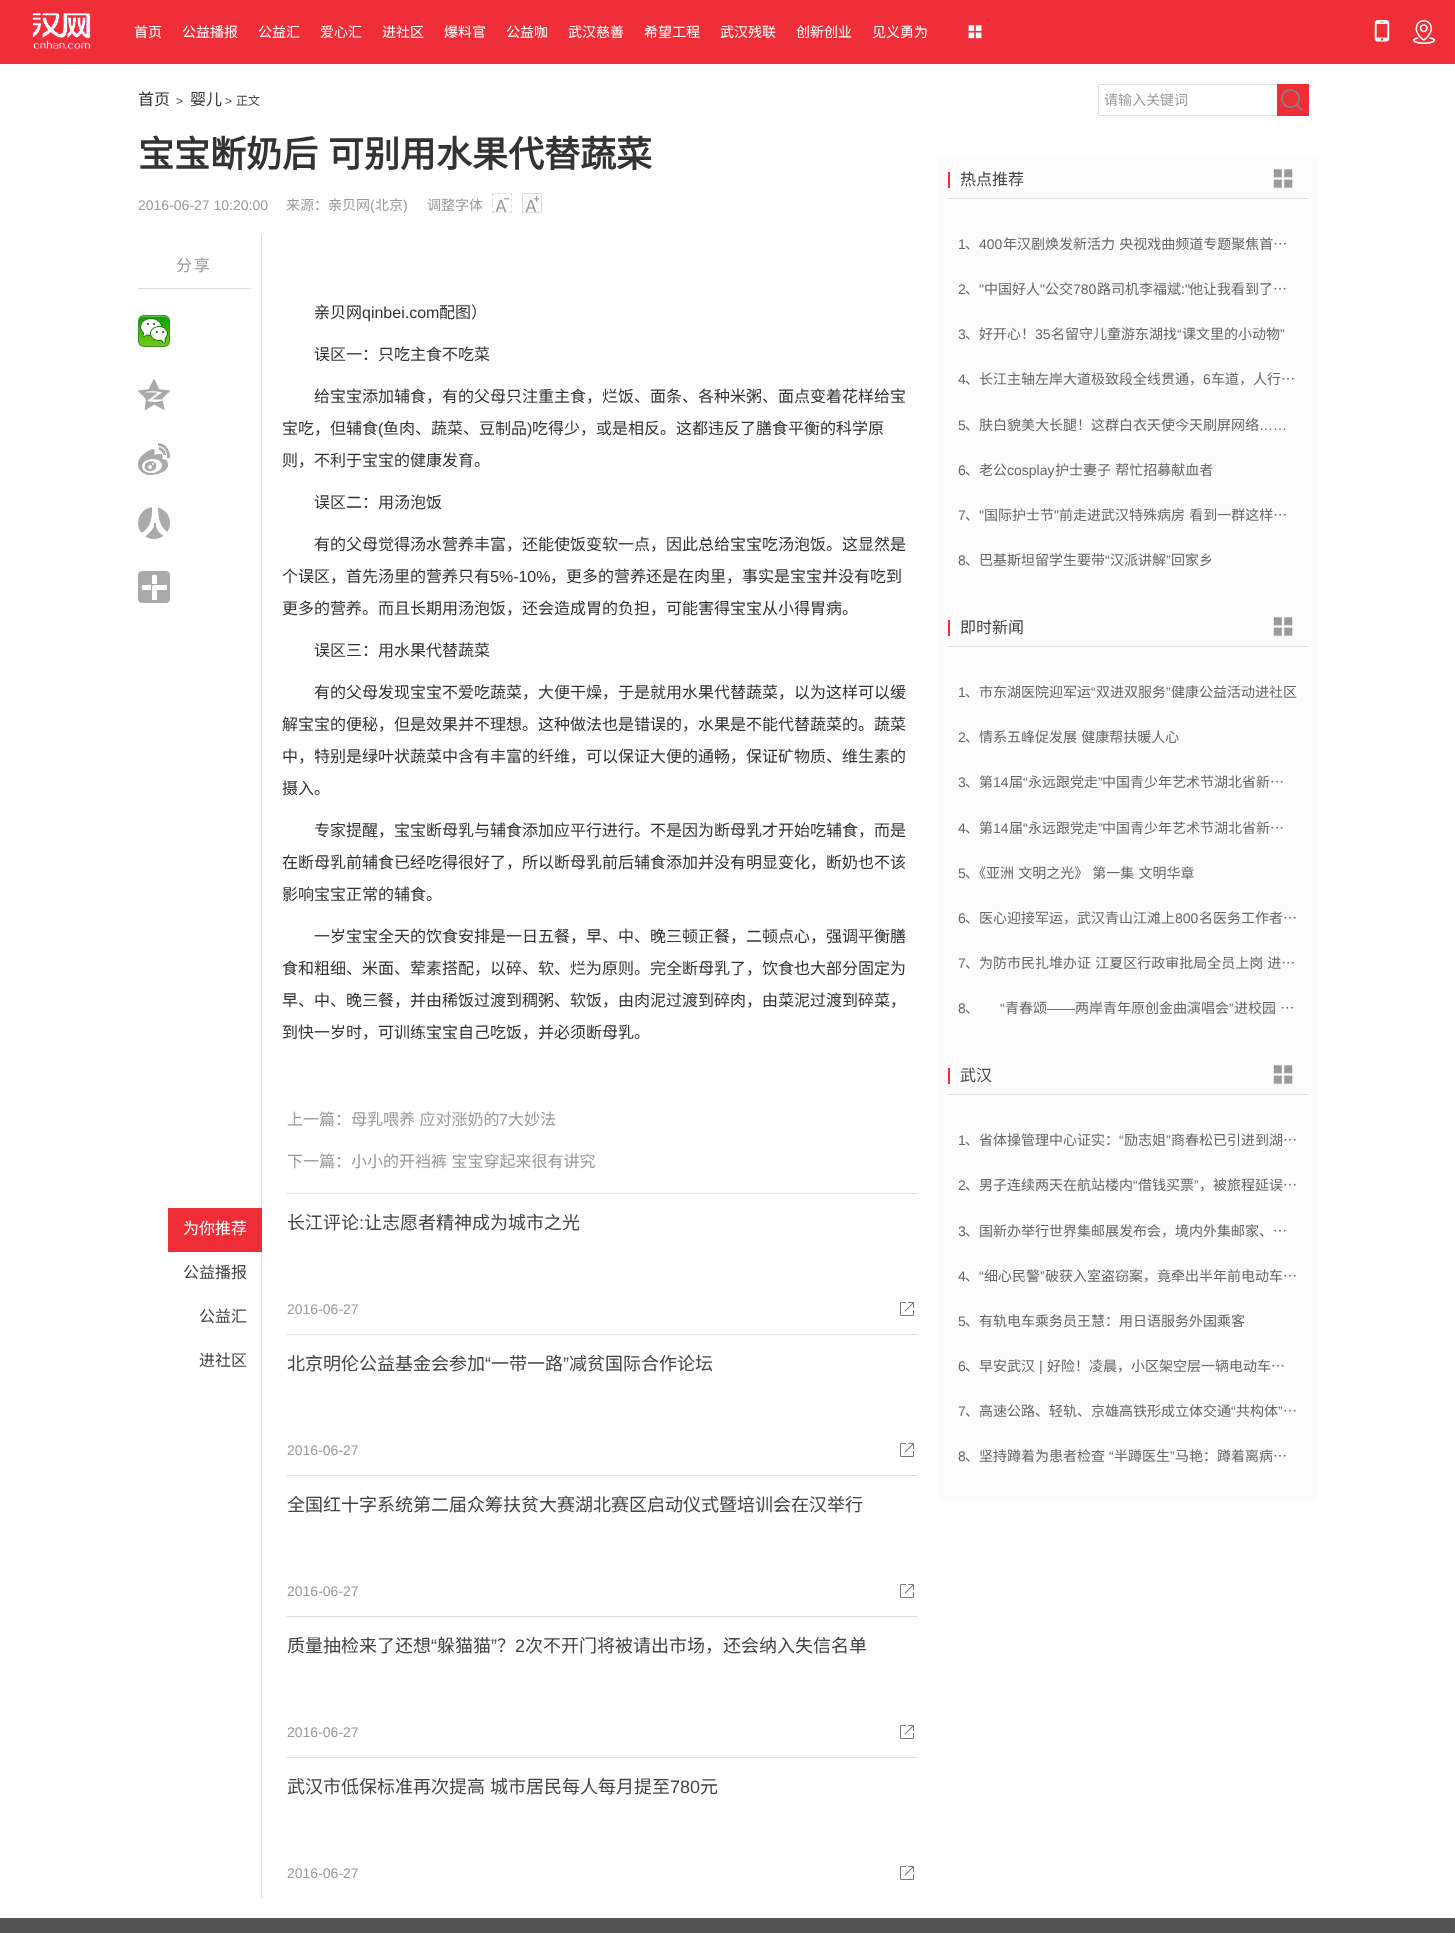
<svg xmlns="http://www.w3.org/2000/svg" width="1455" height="1933">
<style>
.a{font:14px Noto Sans CJK SC;fill:#fff}
.b{font:16px Noto Sans CJK SC;fill:#333}
.c{font:12px Liberation Sans;fill:#444}
.d{font:12px Noto Sans CJK SC;fill:#444}
.e{font:14px Noto Sans CJK SC;fill:#999}
.f{font:bold 36px Noto Sans CJK SC;fill:#333}
.g{font:14px Liberation Sans;fill:#999}
.h{font:16px Noto Sans CJK SC;letter-spacing:2px;fill:#999}
.i{font:16px Liberation Sans;fill:#333}
.j{font:16px Noto Sans CJK SC;fill:#999}
.k{font:16px Liberation Sans;fill:#999}
.l{font:16px Noto Sans CJK SC;fill:#fff}
.m{font:16px Noto Sans CJK SC;fill:#444}
.n{font:18px Noto Sans CJK SC;fill:#444}
.o{font:18px Liberation Sans;fill:#444}
.p{font:14px Liberation Sans;fill:#666}
.q{font:14px Noto Sans CJK SC;fill:#666}
</style>
<rect width="100%" height="100%" fill="#fff"/>
<path fill="#f02e37" d="M0 0h1455v64H0z"/>
<image href="1.png" x="27" y="10" width="64" height="40"/>
<image href="2.png" x="968" y="25" width="14" height="14"/>
<image href="3.png" x="1374" y="20" width="16" height="22"/>
<image href="4.png" x="1412" y="20" width="24" height="24"/>
<path fill="none" stroke="#ddd" d="M1098.5 84.5h179v31H1098.5z"/>
<path fill="#ef2d36" d="M1277 84h32v32H1277z"/>
<image href="5.png" x="1281" y="89" width="23" height="22"/>
<path fill="none" stroke="#ddd" stroke-dasharray="3 2.67" d="M492 193.5h20m-.5-.5v20m-19.5-.5h20m-19.5-19.5v20"/>
<image href="6.png" x="495" y="198" width="15" height="14"/>
<path fill="#fafafa" stroke="#ddd" d="M522.5 193.5h19v19H522.5z"/>
<image href="7.png" x="525" y="196" width="15" height="16"/>
<path fill="#ddd" d="M138 288h113v1H138z"/>
<image href="8.png" x="138" y="315" width="32" height="32"/>
<image href="9.png" x="138" y="379" width="32" height="31"/>
<image href="10.png" x="138" y="443" width="32" height="32"/>
<image href="11.png" x="138" y="507" width="32" height="32"/>
<image href="12.png" x="138" y="571" width="32" height="32"/>
<path fill="#ddd" d="M261 235h1v1663H261z"/>
<path fill="#ef2d36" d="M168 1208h94v44H168z"/>
<path fill="#ddd" d="M287 1193h630v1H287z"/>
<image href="13.png" x="900" y="1302" width="14" height="14"/>
<path fill="#ddd" d="M287 1334h630v1H287z"/>
<image href="13.png" x="900" y="1443" width="14" height="14"/>
<path fill="#ddd" d="M287 1475h630v1H287z"/>
<image href="13.png" x="900" y="1584" width="14" height="14"/>
<path fill="#ddd" d="M287 1616h630v1H287z"/>
<image href="13.png" x="900" y="1725" width="14" height="14"/>
<path fill="#ddd" d="M287 1757h630v1H287z"/>
<image href="13.png" x="900" y="1866" width="14" height="14"/>
<path fill="#fcfcfc" d="M938 157h380v1344H938z"/>
<path fill="#dcdcdc" d="M948 198h360v1H948z"/>
<path fill="#f02c38" d="M948 172h2v16H948z"/>
<image href="14.png" x="1273" y="169" width="20" height="19"/>
<path fill="#dcdcdc" d="M948 646h360v1H948z"/>
<path fill="#f02c38" d="M948 620h2v16H948z"/>
<image href="14.png" x="1273" y="617" width="20" height="19"/>
<path fill="#dcdcdc" d="M948 1094h360v1H948z"/>
<path fill="#f02c38" d="M948 1068h2v16H948z"/>
<image href="14.png" x="1273" y="1065" width="20" height="19"/>
<path fill="#525252" d="M0 1918h1455v15H0z"/>
<text class="a" x="134" y="37">首页</text>
<text class="a" x="182" y="37">公益播报</text>
<text class="a" x="258" y="37">公益汇</text>
<text class="a" x="320" y="37">爱心汇</text>
<text class="a" x="382" y="37">进社区</text>
<text class="a" x="444" y="37">爆料官</text>
<text class="a" x="506" y="37">公益咖</text>
<text class="a" x="568" y="37">武汉慈善</text>
<text class="a" x="644" y="37">希望工程</text>
<text class="a" x="720" y="37">武汉残联</text>
<text class="a" x="796" y="37">创新创业</text>
<text class="a" x="872" y="37">见义勇为</text>
<text class="b" x="138" y="105">首页</text>
<text class="c" x="176" y="105">&gt;</text>
<text class="b" x="190" y="105">婴儿</text>
<text class="c" x="225" y="105">&gt;</text>
<text class="d" x="236" y="105">正文</text>
<text class="e" x="1104" y="105">请输入关键词</text>
<text class="f" x="138" y="167" word-spacing="2">宝宝断奶后 可别用水果代替蔬菜</text>
<text class="g" x="138" y="210">2016-06-27 10:20:00</text>
<text class="e" x="286" y="210">来源：亲贝网</text>
<text class="g" x="370" y="210">(</text>
<text class="e" x="375" y="210">北京</text>
<text class="g" x="403" y="210">)</text>
<text class="e" x="427" y="210">调整字体</text>
<text class="h" x="176" y="271">分享</text>
<text class="b" x="314" y="318">亲贝网</text>
<text class="i" x="362" y="318">qinbei.com</text>
<text class="b" x="439" y="318">配图）</text>
<text class="b" x="314" y="360">误区一：只吃主食不吃菜</text>
<text class="b" x="314" y="402">给宝宝添加辅食，有的父母只注重主食，烂饭、面条、各种米粥、面点变着花样给宝</text>
<text class="b" x="282" y="434">宝吃，但辅食</text>
<text class="i" x="378" y="434">(</text>
<text class="b" x="383" y="434">鱼肉、蔬菜、豆制品</text>
<text class="i" x="527" y="434">)</text>
<text class="b" x="532" y="434">吃得少，或是相反。这都违反了膳食平衡的科学原</text>
<text class="b" x="282" y="466">则，不利于宝宝的健康发育。</text>
<text class="b" x="314" y="508">误区二：用汤泡饭</text>
<text class="b" x="314" y="550">有的父母觉得汤水营养丰富，还能使饭变软一点，因此总给宝宝吃汤泡饭。这显然是</text>
<text class="b" x="282" y="582">个误区，首先汤里的营养只有</text>
<text class="i" x="490" y="582">5%-10%</text>
<text class="b" x="550" y="582">，更多的营养还是在肉里，事实是宝宝并没有吃到</text>
<text class="b" x="282" y="614">更多的营养。而且长期用汤泡饭，还会造成胃的负担，可能害得宝宝从小得胃病。</text>
<text class="b" x="314" y="656">误区三：用水果代替蔬菜</text>
<text class="b" x="314" y="698">有的父母发现宝宝不爱吃蔬菜，大便干燥，于是就用水果代替蔬菜，以为这样可以缓</text>
<text class="b" x="282" y="730">解宝宝的便秘，但是效果并不理想。这种做法也是错误的，水果是不能代替蔬菜的。蔬菜</text>
<text class="b" x="282" y="762">中，特别是绿叶状蔬菜中含有丰富的纤维，可以保证大便的通畅，保证矿物质、维生素的</text>
<text class="b" x="282" y="794">摄入。</text>
<text class="b" x="314" y="836">专家提醒，宝宝断母乳与辅食添加应平行进行。不是因为断母乳才开始吃辅食，而是</text>
<text class="b" x="282" y="868">在断母乳前辅食已经吃得很好了，所以断母乳前后辅食添加并没有明显变化，断奶也不该</text>
<text class="b" x="282" y="900">影响宝宝正常的辅食。</text>
<text class="b" x="314" y="942">一岁宝宝全天的饮食安排是一日五餐，早、中、晚三顿正餐，二顿点心，强调平衡膳</text>
<text class="b" x="282" y="974">食和粗细、米面、荤素搭配，以碎、软、烂为原则。完全断母乳了，饮食也大部分固定为</text>
<text class="b" x="282" y="1006">早、中、晚三餐，并由稀饭过渡到稠粥、软饭，由肉泥过渡到碎肉，由菜泥过渡到碎菜，</text>
<text class="b" x="282" y="1038">到快一岁时，可训练宝宝自己吃饭，并必须断母乳。</text>
<text class="j" x="287" y="1125">上一篇：</text>
<text class="j" x="351" y="1125" word-spacing="1">母乳喂养 应对涨奶的</text>
<text class="k" x="499" y="1125">7</text>
<text class="j" x="508" y="1125">大妙法</text>
<text class="j" x="287" y="1167">下一篇：</text>
<text class="j" x="351" y="1167" word-spacing="1">小小的开裆裤 宝宝穿起来很有讲究</text>
<text class="l" x="183" y="1234">为你推荐</text>
<text class="m" x="183" y="1278">公益播报</text>
<text class="m" x="199" y="1322">公益汇</text>
<text class="m" x="199" y="1366">进社区</text>
<text class="n" x="287" y="1229">长江评论</text>
<text class="o" x="359" y="1229">:</text>
<text class="n" x="364" y="1229">让志愿者精神成为城市之光</text>
<text class="g" x="287" y="1314">2016-06-27</text>
<text class="n" x="287" y="1370">北京明伦公益基金会参加</text>
<text class="o" x="485" y="1370">“</text>
<text class="n" x="491" y="1370">一带一路</text>
<text class="o" x="563" y="1370">”</text>
<text class="n" x="569" y="1370">减贫国际合作论坛</text>
<text class="g" x="287" y="1455">2016-06-27</text>
<text class="n" x="287" y="1511">全国红十字系统第二届众筹扶贫大赛湖北赛区启动仪式暨培训会在汉举行</text>
<text class="g" x="287" y="1596">2016-06-27</text>
<text class="n" x="287" y="1652">质量抽检来了还想</text>
<text class="o" x="431" y="1652">“</text>
<text class="n" x="437" y="1652">躲猫猫</text>
<text class="o" x="491" y="1652">”</text>
<text class="n" x="497" y="1652">？</text>
<text class="o" x="515" y="1652">2</text>
<text class="n" x="525" y="1652">次不开门将被请出市场，还会纳入失信名单</text>
<text class="g" x="287" y="1737">2016-06-27</text>
<text class="n" x="287" y="1793" word-spacing="1">武汉市低保标准再次提高 城市居民每人每月提至</text>
<text class="o" x="670" y="1793">780</text>
<text class="n" x="700" y="1793">元</text>
<text class="g" x="287" y="1878">2016-06-27</text>
<text class="m" x="960" y="185">热点推荐</text>
<text class="p" x="958" y="249">1</text>
<text class="q" x="965" y="249">、</text>
<text class="p" x="979" y="249">400</text>
<text class="q" x="1003" y="249" word-spacing="1">年汉剧焕发新活力 央视戏曲频道专题聚焦首…</text>
<text class="p" x="958" y="294">2</text>
<text class="q" x="965" y="294">、</text>
<text class="p" x="979" y="294">"</text>
<text class="q" x="984" y="294">中国好人</text>
<text class="p" x="1040" y="294">"</text>
<text class="q" x="1045" y="294">公交</text>
<text class="p" x="1073" y="294">780</text>
<text class="q" x="1097" y="294">路司机李福斌</text>
<text class="p" x="1181" y="294">:"</text>
<text class="q" x="1189" y="294">他让我看到了…</text>
<text class="p" x="958" y="339">3</text>
<text class="q" x="965" y="339">、好开心！</text>
<text class="p" x="1035" y="339">35</text>
<text class="q" x="1051" y="339">名留守儿童游东湖找</text>
<text class="p" x="1177" y="339">“</text>
<text class="q" x="1182" y="339">课文里的小动物</text>
<text class="p" x="1280" y="339">”</text>
<text class="p" x="958" y="384">4</text>
<text class="q" x="965" y="384">、长江主轴左岸大道极致段全线贯通，</text>
<text class="p" x="1203" y="384">6</text>
<text class="q" x="1211" y="384">车道，人行…</text>
<text class="p" x="958" y="430">5</text>
<text class="q" x="965" y="430">、肤白貌美大长腿！这群白衣天使今天刷屏网络</text>
<text class="p" x="1259" y="430">……</text>
<text class="p" x="958" y="475">6</text>
<text class="q" x="965" y="475">、老公</text>
<text class="p" x="1007" y="475">cosplay</text>
<text class="q" x="1055" y="475" word-spacing="1">护士妻子 帮忙招募献血者</text>
<text class="p" x="958" y="520">7</text>
<text class="p" x="979" y="520">"</text>
<text class="q" x="984" y="520">国际护士节</text>
<text class="p" x="1054" y="520">"</text>
<text class="q" x="1059" y="520" word-spacing="1">前走进武汉特殊病房 看到一群这样…</text>
<text class="q" x="965" y="520">、</text>
<text class="p" x="958" y="565">8</text>
<text class="q" x="965" y="565">、巴基斯坦留学生要带</text>
<text class="p" x="1105" y="565">“</text>
<text class="q" x="1110" y="565">汉派讲解</text>
<text class="p" x="1166" y="565">”</text>
<text class="q" x="1171" y="565">回家乡</text>
<text class="m" x="960" y="633">即时新闻</text>
<text class="p" x="958" y="697">1</text>
<text class="q" x="965" y="697">、市东湖医院迎军运</text>
<text class="p" x="1091" y="697">“</text>
<text class="q" x="1096" y="697">双进双服务</text>
<text class="p" x="1166" y="697">”</text>
<text class="q" x="1171" y="697">健康公益活动进社区</text>
<text class="p" x="958" y="742">2</text>
<text class="q" x="965" y="742" word-spacing="1">、情系五峰促发展 健康帮扶暖人心</text>
<text class="p" x="958" y="787">3</text>
<text class="q" x="965" y="787">、第</text>
<text class="p" x="993" y="787">14</text>
<text class="q" x="1009" y="787">届</text>
<text class="p" x="1023" y="787">“</text>
<text class="q" x="1028" y="787">永远跟党走</text>
<text class="p" x="1098" y="787">”</text>
<text class="q" x="1102" y="787">中国青少年艺术节湖北省新…</text>
<text class="p" x="958" y="833">4</text>
<text class="q" x="965" y="833">、第</text>
<text class="p" x="993" y="833">14</text>
<text class="q" x="1009" y="833">届</text>
<text class="p" x="1023" y="833">“</text>
<text class="q" x="1028" y="833">永远跟党走</text>
<text class="p" x="1098" y="833">”</text>
<text class="q" x="1102" y="833">中国青少年艺术节湖北省新…</text>
<text class="p" x="958" y="878">5</text>
<text class="q" x="965" y="878" word-spacing="1">、《亚洲 文明之光》 第一集 文明华章</text>
<text class="p" x="958" y="923">6</text>
<text class="q" x="965" y="923">、医心迎接军运，武汉青山江滩上</text>
<text class="p" x="1175" y="923">800</text>
<text class="q" x="1199" y="923">名医务工作者…</text>
<text class="p" x="958" y="968">7</text>
<text class="q" x="965" y="968" word-spacing="1">、为防市民扎堆办证 江夏区行政审批局全员上岗 进…</text>
<text class="p" x="958" y="1013">8</text>
<text class="p" x="1000" y="1013">“</text>
<text class="q" x="1005" y="1013">青春颂</text>
<text class="q" x="1075" y="1013">两岸青年原创金曲演唱会</text>
<text class="p" x="1229" y="1013">”</text>
<text class="q" x="1234" y="1013" word-spacing="1">进校园 …</text>
<text class="q" x="965" y="1013">、</text>
<text class="p" x="1047" y="1013">——</text>
<text class="m" x="960" y="1081">武汉</text>
<text class="p" x="958" y="1145">1</text>
<text class="q" x="965" y="1145">、省体操管理中心证实：</text>
<text class="p" x="1119" y="1145">“</text>
<text class="q" x="1124" y="1145">励志姐</text>
<text class="p" x="1166" y="1145">”</text>
<text class="q" x="1171" y="1145">商春松已引进到湖…</text>
<text class="p" x="958" y="1190">2</text>
<text class="q" x="965" y="1190">、男子连续两天在航站楼内</text>
<text class="p" x="1133" y="1190">“</text>
<text class="q" x="1138" y="1190">借钱买票</text>
<text class="p" x="1194" y="1190">”</text>
<text class="q" x="1199" y="1190">，被旅程延误…</text>
<text class="p" x="958" y="1236">3</text>
<text class="q" x="965" y="1236">、国新办举行世界集邮展发布会，境内外集邮家、…</text>
<text class="p" x="958" y="1281">4</text>
<text class="p" x="979" y="1281">“</text>
<text class="q" x="984" y="1281">细心民警</text>
<text class="p" x="1040" y="1281">”</text>
<text class="q" x="1045" y="1281">破获入室盗窃案，竟牵出半年前电动车…</text>
<text class="q" x="965" y="1281">、</text>
<text class="p" x="958" y="1326">5</text>
<text class="q" x="965" y="1326">、有轨电车乘务员王慧：用日语服务外国乘客</text>
<text class="p" x="958" y="1371">6</text>
<text class="q" x="965" y="1371">、早安武汉</text>
<text class="p" x="1039" y="1371">|</text>
<text class="q" x="1047" y="1371">好险！凌晨，小区架空层一辆电动车…</text>
<text class="p" x="958" y="1416">7</text>
<text class="q" x="965" y="1416">、高速公路、轻轨、京雄高铁形成立体交通</text>
<text class="p" x="1231" y="1416">“</text>
<text class="q" x="1236" y="1416">共构体</text>
<text class="p" x="1278" y="1416">”</text>
<text class="q" x="1283" y="1416">…</text>
<text class="p" x="958" y="1461">8</text>
<text class="q" x="965" y="1461">、坚持蹲着为患者检查</text>
<text class="p" x="1109" y="1461">“</text>
<text class="q" x="1114" y="1461">半蹲医生</text>
<text class="p" x="1170" y="1461">”</text>
<text class="q" x="1175" y="1461">马艳：蹲着离病…</text>
</svg>
